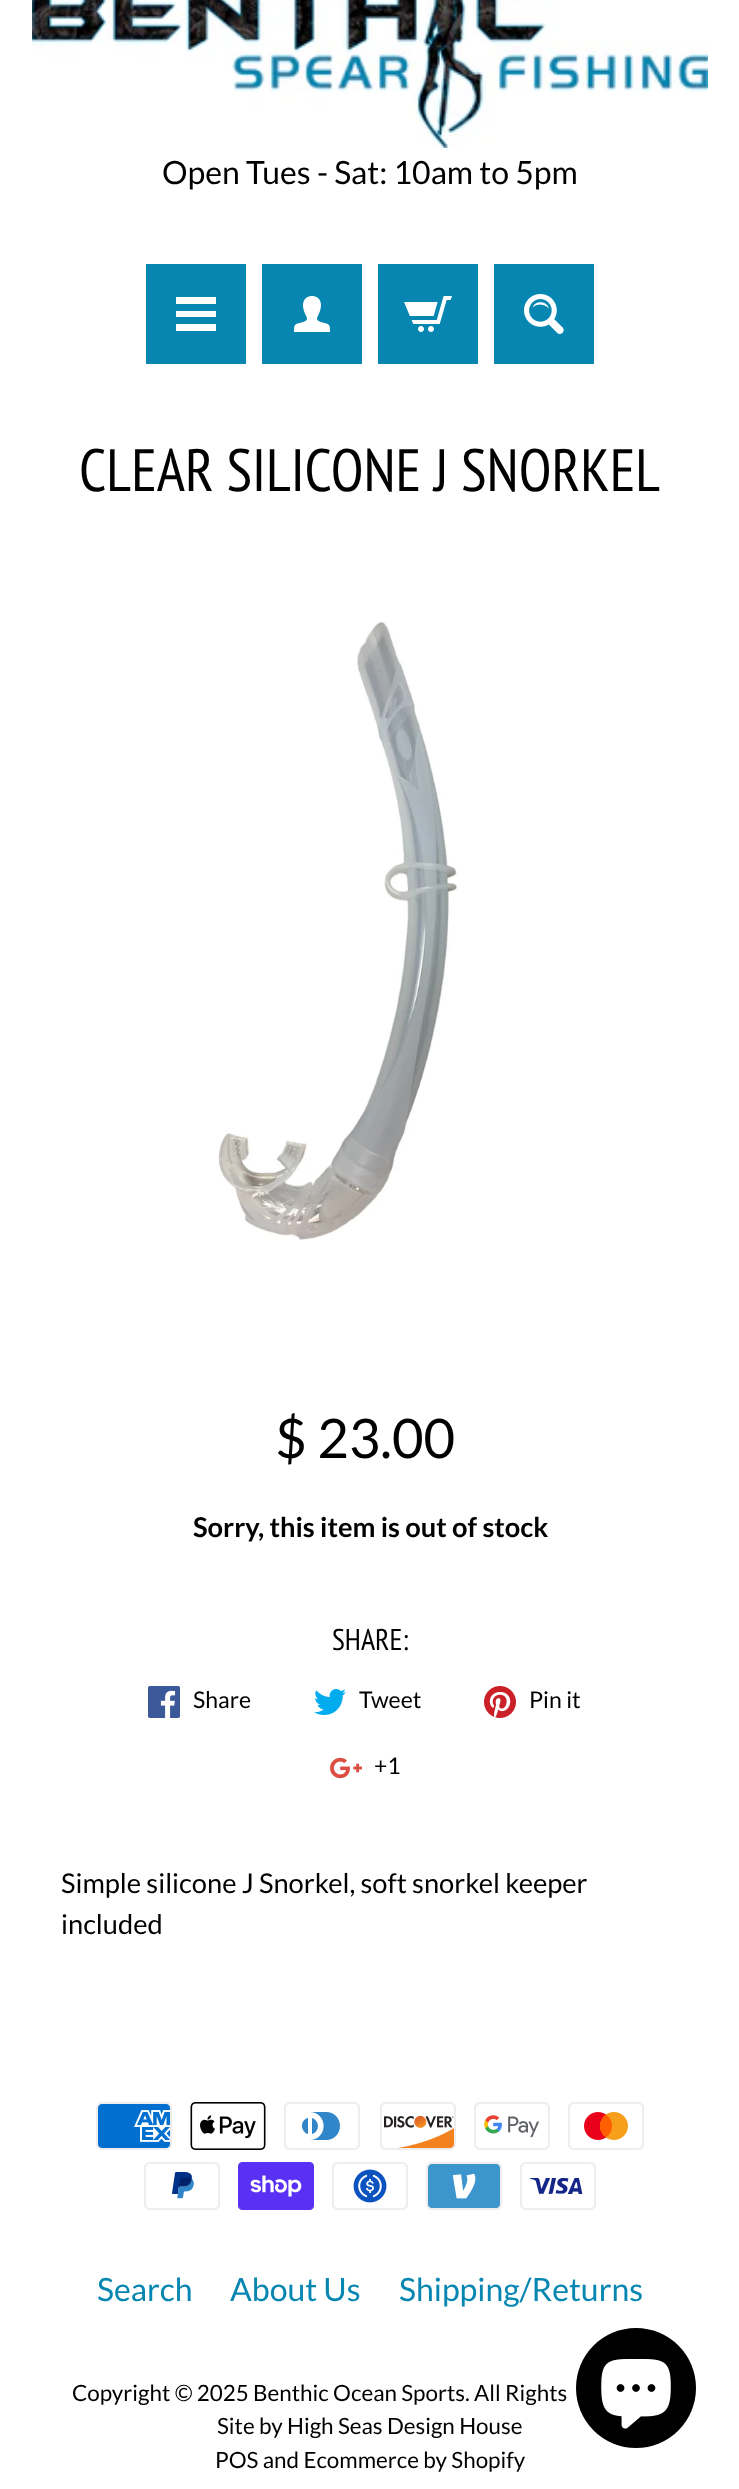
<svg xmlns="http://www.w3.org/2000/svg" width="739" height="2489">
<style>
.a{font:32px Lato;fill:#000}
.b{font:59.75px PT Sans Narrow;fill:#000}
.c{font:54.5px Lato;fill:#000}
.d{font:bold 27.25px Lato;fill:#000}
.e{font:30px PT Sans Narrow;fill:#000}
.f{font:23px Lato;fill:#000}
.g{font:27.25px Lato;fill:#000}
.h{font:32px Lato;fill:#0686b1}
.i{font:22.4px Lato;fill:#000}
</style>
<rect width="100%" height="100%" fill="#fff"/>
<image href="1.png" x="32" y="0" width="676" height="148"/>
<path fill="#0686b1" d="M146 264h100v100H146z"/>
<path fill="#fff" d="M216 304h-40v-7h40zm0 7h-40v6h40zm0 13h-40v7h40z"/>
<path fill="#0686b1" d="M262 264h100v100H262z"/>
<image href="2.png" x="294" y="296" width="36" height="36"/>
<path fill="#0686b1" d="M378 264h100v100H378z"/>
<image href="3.png" x="404" y="296" width="48" height="36"/>
<path fill="#0686b1" d="M494 264h100v100H494z"/>
<image href="4.png" x="524" y="294" width="40" height="40"/>
<image href="5.png" x="218" y="622" width="240" height="618"/>
<image href="6.png" x="148" y="1686" width="32" height="32"/>
<image href="7.png" x="314" y="1689" width="32" height="26"/>
<image href="8.png" x="484" y="1686" width="32" height="32"/>
<image href="9.png" x="330" y="1757" width="32" height="22"/>
<image href="10.png" x="96" y="2102" width="76" height="48"/>
<image href="11.png" x="190" y="2102" width="76" height="48"/>
<image href="12.png" x="284" y="2102" width="76" height="48"/>
<image href="13.png" x="380" y="2102" width="76" height="48"/>
<image href="14.png" x="474" y="2102" width="76" height="48"/>
<image href="15.png" x="568" y="2102" width="76" height="48"/>
<image href="16.png" x="144" y="2162" width="76" height="48"/>
<image href="17.png" x="238" y="2162" width="76" height="48"/>
<image href="18.png" x="332" y="2162" width="76" height="48"/>
<image href="19.png" x="426" y="2162" width="76" height="48"/>
<image href="20.png" x="520" y="2162" width="76" height="48"/>
<circle fill="#000" cx="636" cy="2388" r="60"/>
<image href="21.png" x="601" y="2359" width="70" height="70"/>
<text class="a" x="162" y="184">Open Tues - Sat: 10am to 5pm</text>
<text class="b" x="79" y="491">CLEAR SILICONE J SNORKEL</text>
<text class="c" x="275" y="1458">$ 23.00</text>
<text class="d" x="193" y="1537">Sorry, this item is out of stock</text>
<text class="e" x="332" y="1650">SHARE:</text>
<text class="f" x="193" y="1708">Share</text>
<text class="f" x="359" y="1708">Tweet</text>
<text class="f" x="529" y="1708">Pin it</text>
<text class="f" x="374" y="1774">+1</text>
<text class="g" x="61" y="1893">Simple silicone J Snorkel, soft snorkel keeper</text>
<text class="g" x="61" y="1934">included</text>
<text class="h" x="97" y="2301">Search</text>
<text class="h" x="230" y="2301">About Us</text>
<text class="h" x="399" y="2301">Shipping/Returns</text>
<text class="i" x="72" y="2401">Copyright © 2025 Benthic Ocean Sports. All Rights</text>
<text class="i" x="217" y="2434">Site by High Seas Design House</text>
<text class="i" x="215" y="2468">POS and Ecommerce by Shopify</text>
</svg>
